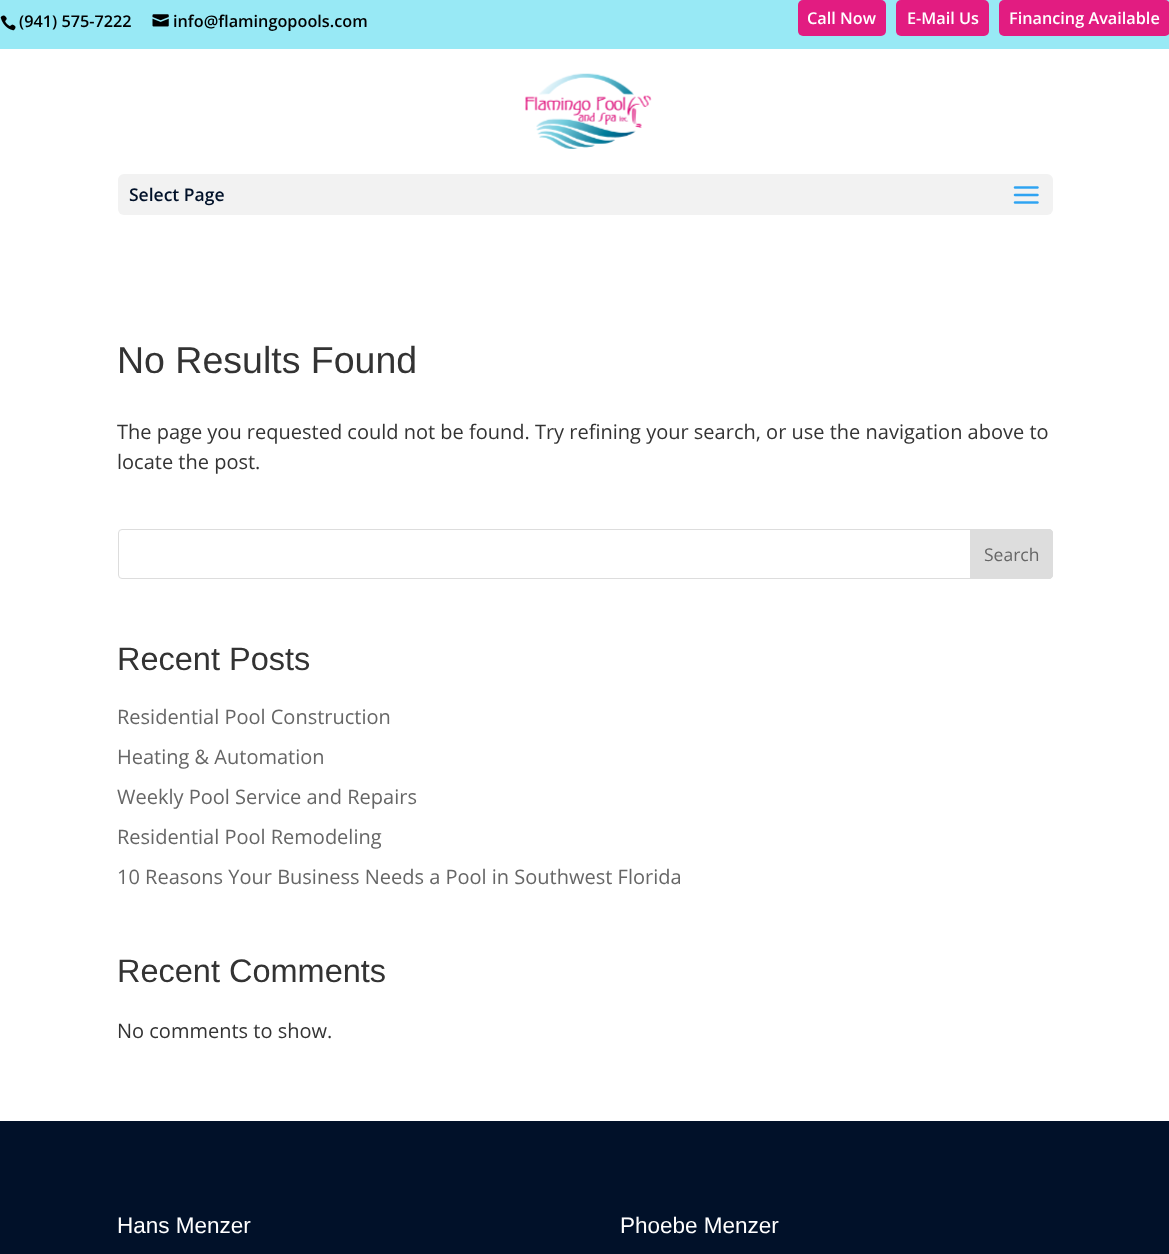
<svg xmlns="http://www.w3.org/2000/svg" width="1169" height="1254">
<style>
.a{font:600 16.25px Open Sans;fill:#000}
.b{font:600 16.25px Open Sans;fill:#fff}
.c{font:600 17.5px Open Sans;fill:#011129}
.d{font:37.5px Liberation Sans;fill:#333}
.e{font:20px Open Sans;fill:#333}
.f{font:17.5px Open Sans;fill:#666}
.g{font:32.5px Liberation Sans;fill:#333}
.h{font:20px Open Sans;fill:#666}
.i{font:22.5px Liberation Sans;fill:#fff}
</style>
<rect width="100%" height="100%" fill="#fff"/>
<path fill="#98e9f5" d="M0 0h1169v49H0z"/>
<image href="1.png" x="0" y="15" width="16" height="16"/>
<image href="2.png" x="152" y="14" width="17" height="13"/>
<rect fill="#e21c81" x="798" width="88" height="36" rx="5"/>
<rect fill="#e21c81" x="896" width="93" height="36" rx="5"/>
<rect fill="#e21c81" x="999" width="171" height="36" rx="5"/>
<image href="3.png" x="525" y="73" width="127" height="76"/>
<rect fill="#f2f2f2" x="118" y="174" width="935" height="41" rx="6"/>
<image href="4.png" x="1013" y="186" width="26" height="18"/>
<rect fill="none" stroke="#ddd" x="118.5" y="529.5" width="934" height="49" rx="3.5"/>
<path fill="#ddd" stroke="#ddd" d="M970.5 529.5h78.5c2 0 3.5 1.5 3.5 3.5v42c0 2-1.5 3.5-3.5 3.5h-78.5z"/>
<path fill="#011129" d="M0 1121h1169v133H0z"/>
<text class="a" x="19" y="27">(941) 575-7222</text>
<text class="a" x="173" y="27">info@flamingopools.com</text>
<text class="b" x="807" y="24">Call Now</text>
<text class="b" x="907" y="24">E-Mail Us</text>
<text class="b" x="1009" y="24">Financing Available</text>
<text class="c" x="129" y="201">Select Page</text>
<text class="d" x="117" y="373">No Results Found</text>
<text class="e" x="117" y="439">The page you requested could not be found. Try refining your search, or use the navigation above to</text>
<text class="e" x="117" y="469">locate the post.</text>
<text class="f" x="984" y="561">Search</text>
<text class="g" x="117" y="670">Recent Posts</text>
<text class="h" x="117" y="724">Residential Pool Construction</text>
<text class="h" x="117" y="764">Heating &amp; Automation</text>
<text class="h" x="117" y="804">Weekly Pool Service and Repairs</text>
<text class="h" x="117" y="844">Residential Pool Remodeling</text>
<text class="h" x="117" y="884">10 Reasons Your Business Needs a Pool in Southwest Florida</text>
<text class="g" x="117" y="982">Recent Comments</text>
<text class="e" x="117" y="1038">No comments to show.</text>
<text class="i" x="117" y="1233">Hans Menzer</text>
<text class="i" x="620" y="1233">Phoebe Menzer</text>
</svg>
